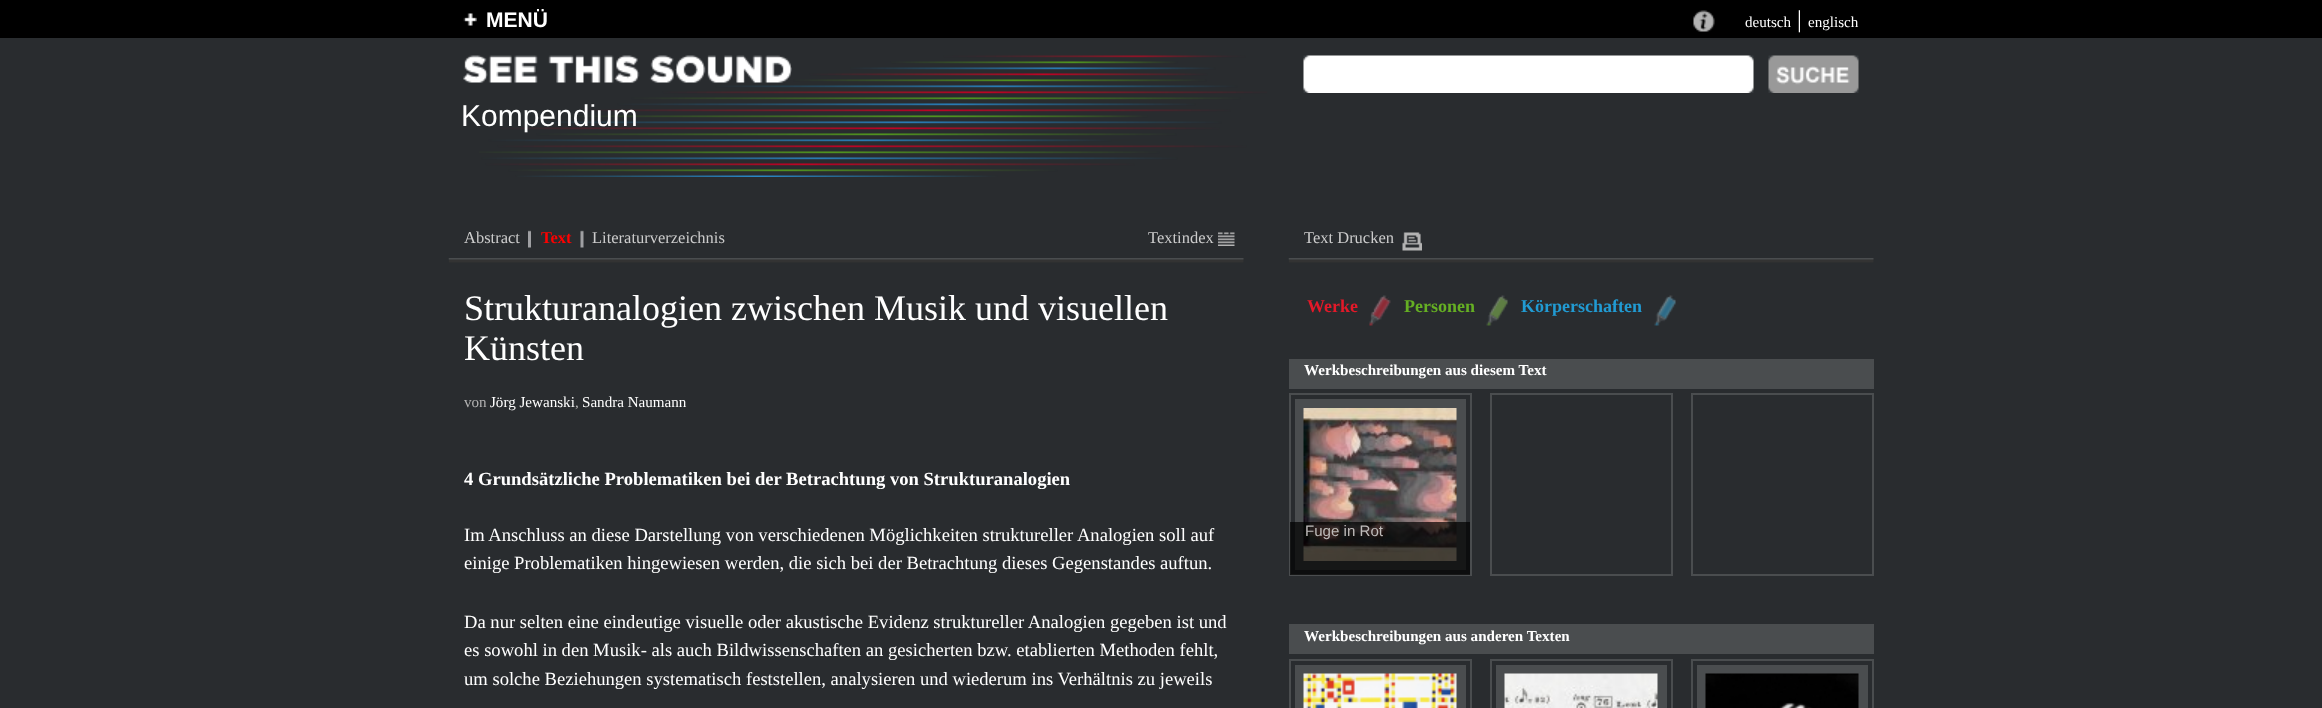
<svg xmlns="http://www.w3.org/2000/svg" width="2322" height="708">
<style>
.a{font:bold 21px Liberation Sans;fill:#fff}
.b{font:15.1px Liberation Serif;fill:#fff}
.c{font:24px Liberation Serif;fill:#fff}
.d{font:30px Liberation Sans;fill:#fff}
.e{font:16.5px Liberation Serif;fill:#ccc}
.f{font:bold 16.5px Liberation Serif;fill:#f00}
.g{font:36px Liberation Serif;fill:#fff}
.h{font:15.1px Liberation Serif;fill:#b3b3b3}
.i{font:bold 18.6px Liberation Serif;fill:#fff}
.j{font:18.6px Liberation Serif;fill:#fff}
.k{font:bold 18px Liberation Serif;fill:#e31929}
.l{font:bold 18px Liberation Serif;fill:#65af23}
.m{font:bold 18px Liberation Serif;fill:#219bd3}
.n{font:bold 15.1px Liberation Serif;fill:#fff}
.o{font:15.1px Liberation Sans;fill:#bfbcbb}
</style>
<rect width="100%" height="100%" fill="#292c2f"/>
<path fill="#000" d="M0 0h2322v38H0z"/>
<image href="1.png" x="463" y="13" width="14" height="13"/>
<image href="2.png" x="1693" y="10" width="22" height="22"/>
<image href="3.png" x="479" y="55" width="788" height="122"/>
<image href="4.png" x="463" y="55" width="329" height="28"/>
<image href="5.png" x="1303" y="55" width="451" height="38"/>
<image href="6.png" x="1768" y="55" width="91" height="38"/>
<image href="7.png" x="528" y="230" width="3" height="18"/>
<image href="8.png" x="580" y="230" width="4" height="18"/>
<image href="9.png" x="1218" y="232" width="17" height="14"/>
<image href="10.png" x="448" y="258" width="796" height="5"/>
<image href="11.png" x="1402" y="232" width="20" height="19"/>
<image href="12.png" x="1288" y="258" width="586" height="5"/>
<image href="13.png" x="1369" y="295" width="22" height="31"/>
<image href="14.png" x="1486" y="295" width="22" height="31"/>
<image href="15.png" x="1654" y="295" width="22" height="31"/>
<path fill="#4a4d4f" d="M1289 359h585v30H1289z"/>
<path fill="none" stroke="#4a4d4f" stroke-width="2" d="M1290 394h181v181H1290z"/>
<path fill="#4a4d4f" d="M1295 399h171v171H1295z"/>
<image href="16.png" x="1303" y="408" width="154" height="153"/>
<path fill="#000000b3" d="M1290 522h180v53H1290z"/>
<path fill="none" stroke="#4a4d4f" stroke-width="2" d="M1491 394h181v181H1491z"/>
<path fill="none" stroke="#4a4d4f" stroke-width="2" d="M1692 394h181v181H1692z"/>
<path fill="#4a4d4f" d="M1289 624h585v30H1289z"/>
<path fill="none" stroke="#4a4d4f" stroke-width="2" d="M1290 660h181v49H1290z"/>
<path fill="#4a4d4f" d="M1295 665h171v43H1295z"/>
<image href="17.png" x="1303" y="673" width="154" height="35"/>
<path fill="none" stroke="#4a4d4f" stroke-width="2" d="M1491 660h181v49H1491z"/>
<path fill="#4a4d4f" d="M1496 665h171v43H1496z"/>
<image href="18.png" x="1504" y="673" width="154" height="35"/>
<path fill="none" stroke="#4a4d4f" stroke-width="2" d="M1692 660h181v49H1692z"/>
<path fill="#4a4d4f" d="M1697 665h171v43H1697z"/>
<image href="19.png" x="1705" y="673" width="154" height="35"/>
<text class="a" x="486" y="27">MENÜ</text>
<text class="b" x="1745" y="27">deutsch</text>
<text class="c" x="1797" y="27">|</text>
<text class="b" x="1808" y="27">englisch</text>
<text class="d" x="461" y="126">Kompendium</text>
<text class="e" x="464" y="243">Abstract</text>
<text class="f" x="541" y="243">Text</text>
<text class="e" x="592" y="243">Literaturverzeichnis</text>
<text class="e" x="1148" y="243">Textindex</text>
<text class="g" x="464" y="320">Strukturanalogien zwischen Musik und visuellen</text>
<text class="g" x="464" y="360">Künsten</text>
<text class="h" x="464" y="407">von</text>
<text class="b" x="490" y="407">Jörg Jewanski</text>
<text class="h" x="575" y="407">,</text>
<text class="b" x="582" y="407">Sandra Naumann</text>
<text class="i" x="464" y="485">4 Grundsätzliche Problematiken bei der Betrachtung von Strukturanalogien</text>
<text class="j" x="464" y="541">Im Anschluss an diese Darstellung von verschiedenen Möglichkeiten struktureller Analogien soll auf</text>
<text class="j" x="464" y="569">einige Problematiken hingewiesen werden, die sich bei der Betrachtung dieses Gegenstandes auftun.</text>
<text class="j" x="464" y="628">Da nur selten eine eindeutige visuelle oder akustische Evidenz struktureller Analogien gegeben ist und</text>
<text class="j" x="464" y="656">es sowohl in den Musik- als auch Bildwissenschaften an gesicherten bzw. etablierten Methoden fehlt,</text>
<text class="j" x="464" y="685">um solche Beziehungen systematisch feststellen, analysieren und wiederum ins Verhältnis zu jeweils</text>
<text class="e" x="1304" y="243">Text Drucken</text>
<text class="k" x="1307" y="312">Werke</text>
<text class="l" x="1404" y="312">Personen</text>
<text class="m" x="1521" y="312">Körperschaften</text>
<text class="n" x="1304" y="375">Werkbeschreibungen aus diesem Text</text>
<text class="o" x="1305" y="536">Fuge in Rot</text>
<text class="n" x="1304" y="641">Werkbeschreibungen aus anderen Texten</text>
</svg>
